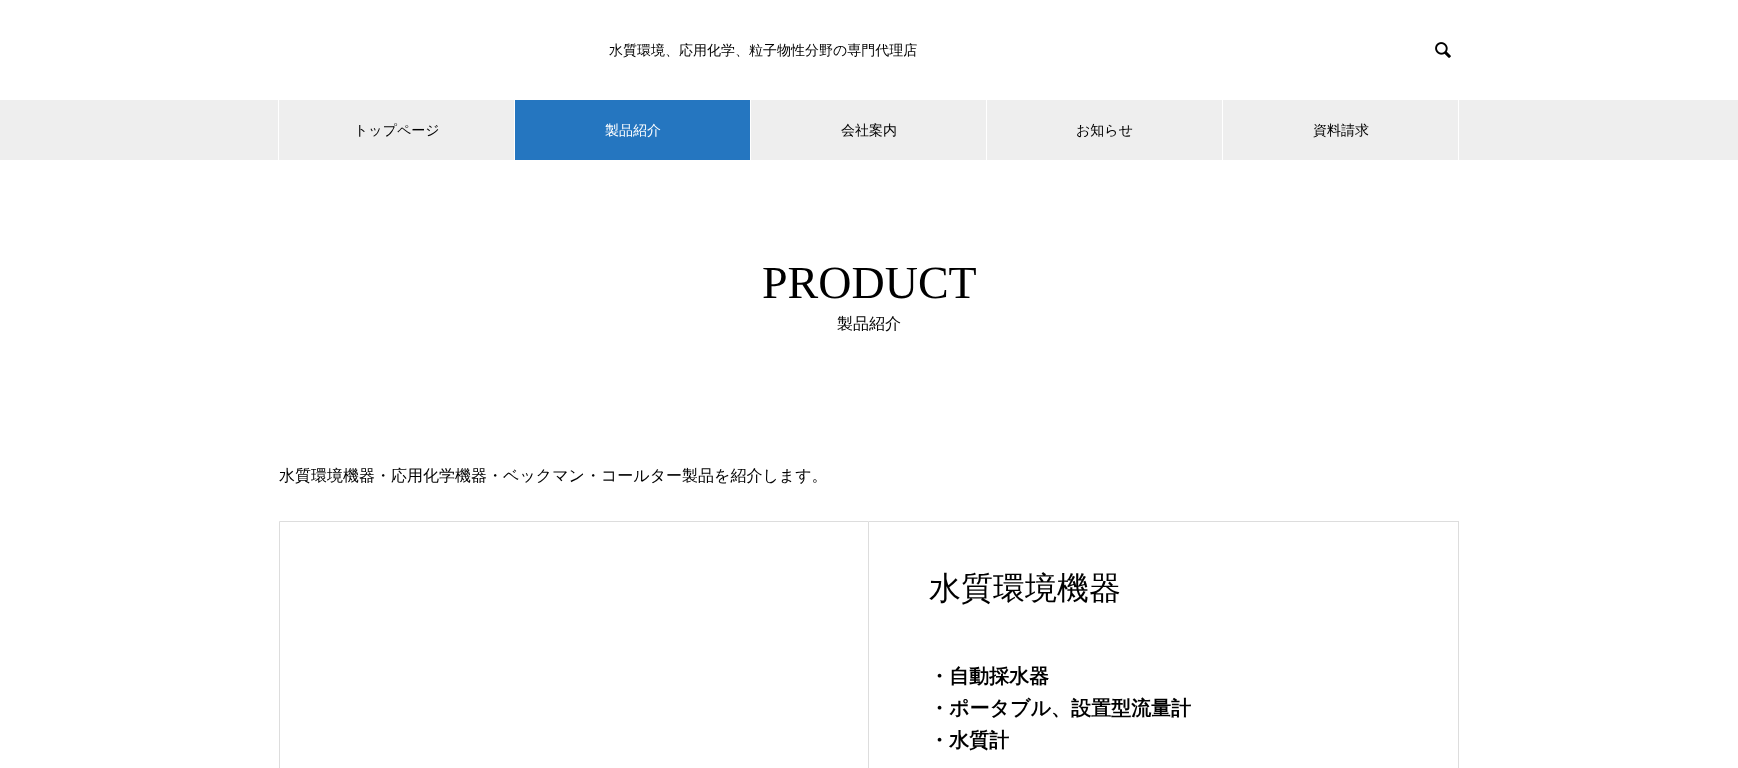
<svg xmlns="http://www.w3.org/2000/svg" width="1738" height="768">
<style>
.a{font:500 14px WenQuanYi Zen Hei;fill:#000}
.b{font:500 14px WenQuanYi Zen Hei;fill:#fff}
.c{font:46px Liberation Serif;fill:#000}
.d{font:500 16px WenQuanYi Zen Hei;fill:#000}
.e{font:500 32px WenQuanYi Zen Hei;fill:#000}
.f{font:bold 20px WenQuanYi Zen Hei;fill:#000}
</style>
<rect width="100%" height="100%" fill="#fff"/>
<image href="1.png" x="1435" y="42" width="16" height="16"/>
<path fill="#eee" d="M0 100h1738v60H0z"/>
<path fill="#fff" d="M514 100h1v60H514z"/>
<path fill="#fff" d="M278 100h1v60H278z"/>
<path fill="#fff" d="M750 100h1v60H750z"/>
<path fill="#2576c0" d="M515 100h235v60H515z"/>
<path fill="#fff" d="M1222 100h1v60H1222z"/>
<path fill="#fff" d="M986 100h1v60H986z"/>
<path fill="#fff" d="M1458 100h1v60H1458z"/>
<path fill="none" stroke="#ddd" d="M279.5 521.5h589v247H279.5z"/>
<path fill="#ddd" d="M869 521h590v1H869z"/>
<path fill="#ddd" d="M1458 521h1v247H1458z"/>
<text class="a" x="609" y="55">水質環境、応用化学、粒子物性分野の専門代理店</text>
<text class="a" x="354" y="135">トップページ</text>
<text class="b" x="605" y="135">製品紹介</text>
<text class="a" x="841" y="135">会社案内</text>
<text class="a" x="1076" y="135">お知らせ</text>
<text class="a" x="1313" y="135">資料請求</text>
<text class="c" x="762" y="298">PRODUCT</text>
<text class="d" x="837" y="329">製品紹介</text>
<text class="d" x="279" y="481">水質環境機器・応用化学機器・ベックマン・コールター製品を紹介します。</text>
<text class="e" x="929" y="599">水質環境機器</text>
<text class="f" x="929" y="683">・自動採水器</text>
<text class="f" x="929" y="715">・ポータブル、設置型流量計</text>
<text class="f" x="929" y="747">・水質計</text>
</svg>
